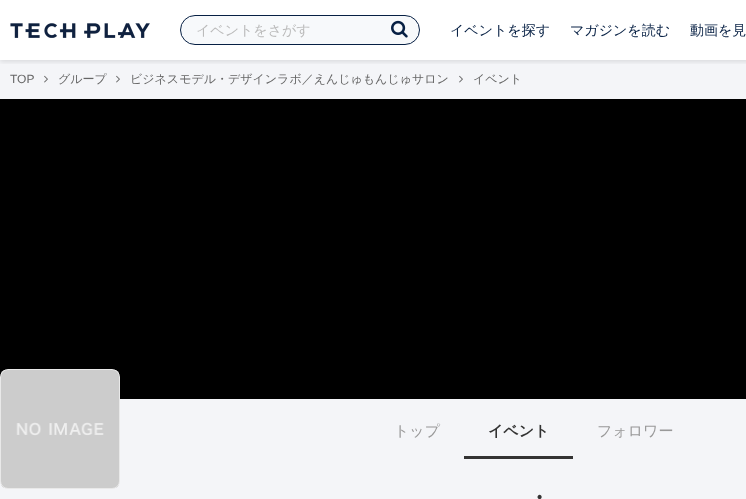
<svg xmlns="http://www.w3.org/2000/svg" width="746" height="499">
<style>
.a{font:500 14px WenQuanYi Zen Hei;fill:#bbb}
.b{font:500 14px WenQuanYi Zen Hei;fill:#072044}
.c{font:12px Liberation Sans;fill:#666}
.d{font:500 12px WenQuanYi Zen Hei;fill:#666}
.e{font:500 15px WenQuanYi Zen Hei;fill:#999}
.f{font:bold 15px WenQuanYi Zen Hei;fill:#333}
.g{font:bold 22px WenQuanYi Zen Hei;fill:#333}
</style>
<defs>
<clipPath id="clip1"><path d="M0 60h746v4H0z"/></clipPath>
</defs>
<rect width="100%" height="100%" fill="#fff"/>
<path fill="#f4f5f8" d="M0 60h746v439H0z"/>
<g clip-path="url(#clip1)">
<path fill="#0000001a" filter="blur(2.5px)" d="M0 2h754v60H0z"/>
</g>
<image href="1.png" x="10" y="23" width="140" height="15"/>
<rect fill="#f7f9fb" stroke="#072044" x="180.5" y="15.5" width="239" height="29" rx="14.5"/>
<image href="2.png" x="391" y="20" width="17" height="18"/>
<image href="3.png" x="44" y="75" width="4" height="8"/>
<image href="3.png" x="116" y="75" width="4" height="8"/>
<image href="3.png" x="459" y="75" width="4" height="8"/>
<path fill="#000" d="M0 99h746v300H0z"/>
<image href="4.png" x="1" y="370" width="118" height="118"/>
<rect fill="none" stroke="#e9e9e9" x="0.5" y="369.5" width="119" height="119" rx="7.5"/>
<path fill="#333" d="M464 456h109v3H464z"/>
<text class="a" x="196" y="35">イベントをさがす</text>
<text class="b" x="450" y="35">イベントを探す</text>
<text class="b" x="570" y="35">マガジンを読む</text>
<text class="b" x="690" y="35">動画を見</text>
<text class="c" x="10" y="83">TOP</text>
<text class="d" x="58" y="83">グループ</text>
<text class="d" x="130" y="83">ビジネスモデル・デザインラボ／えんじゅもんじゅサロン</text>
<text class="d" x="473" y="83">イベント</text>
<text class="e" x="394" y="436">トップ</text>
<text class="f" x="488" y="436">イベント</text>
<text class="e" x="597" y="436">フォロワー</text>
<text class="g" x="528" y="505">・</text>
</svg>
